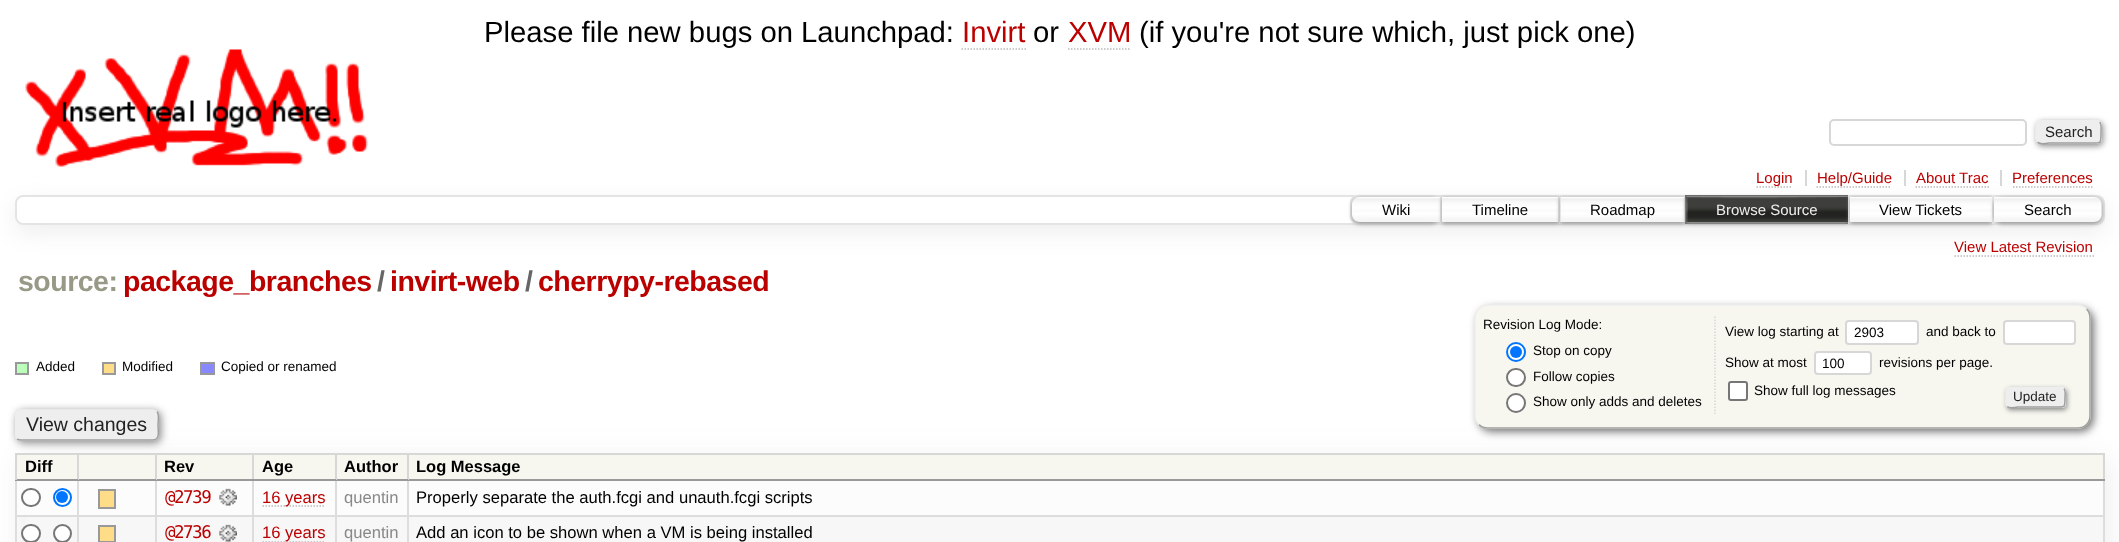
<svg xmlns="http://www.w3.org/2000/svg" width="2119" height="542">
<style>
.a{font:29.25px Liberation Sans;fill:#000}
.b{font:29.25px Liberation Sans;fill:#b00}
.c{font:15px Liberation Sans;fill:#222}
.d{font:15px Liberation Sans;fill:#b00}
.e{font:15px Liberation Sans;fill:#000}
.f{font:15px Liberation Sans;fill:#eee}
.g{font:bold 28.5px Liberation Sans;letter-spacing:-0.5px;fill:#998}
.h{font:bold 28.5px Liberation Sans;letter-spacing:-0.5px;fill:#b00}
.i{font:bold 28.5px Liberation Sans;letter-spacing:-0.5px;fill:#666}
.j{font:13.5px Liberation Sans;fill:#000}
.k{font:13.5px Liberation Sans;fill:#222}
.l{font:19.5px Liberation Sans;fill:#222}
.m{font:bold 16.5px Liberation Sans;fill:#000}
.n{font:17.5px DejaVu Sans Mono;letter-spacing:-1.5px;fill:#b00}
.o{font:16.6px Liberation Sans;fill:#b00}
.p{font:16.6px Liberation Sans;fill:#888}
.q{font:16.6px Liberation Sans;fill:#000}
</style>
<defs>
<clipPath id="clip1"><path d="M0 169h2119v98h-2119zm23 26h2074c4.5 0 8 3.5 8 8v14c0 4.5-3.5 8-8 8h-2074c-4.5 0-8-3.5-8-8v-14c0-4.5 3.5-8 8-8z" clip-rule="evenodd"/></clipPath>
<clipPath id="clip2"><path d="M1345 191h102v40h-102zm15 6h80v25h-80c-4.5 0-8-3.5-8-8v-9c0-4.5 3.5-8 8-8z" clip-rule="evenodd"/></clipPath>
<clipPath id="clip3"><path d="M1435 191h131v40h-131zm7 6h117v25h-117z" clip-rule="evenodd"/></clipPath>
<clipPath id="clip4"><path d="M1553 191h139v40h-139zm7 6h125v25h-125z" clip-rule="evenodd"/></clipPath>
<clipPath id="clip5"><path d="M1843 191h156v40h-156zm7 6h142v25h-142z" clip-rule="evenodd"/></clipPath>
<clipPath id="clip6"><path d="M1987 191h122v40h-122zm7 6h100c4.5 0 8 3.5 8 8v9c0 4.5-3.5 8-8 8h-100z" clip-rule="evenodd"/></clipPath>
</defs>
<rect width="100%" height="100%" fill="#fff"/>
<path fill="none" stroke="#bbb" stroke-width="1.5" stroke-dasharray="1.5 1.5" d="M961.5 49h64.5"/>
<path fill="none" stroke="#bbb" stroke-width="1.5" stroke-dasharray="1.5 1.5" d="M1068 49h63"/>
<image href="1.png" x="25" y="49" width="343" height="118"/>
<rect fill="none" stroke="#d7d7d7" stroke-width="2" x="1830" y="120" width="196" height="25" rx="4"/>
<rect fill="#888" filter="blur(3px)" x="2037" y="122" width="66" height="24" rx="5"/>
<rect fill="#eee" x="2036" y="120" width="66" height="24" rx="5"/>
<path fill="none" stroke="#9f9f9f" stroke-width="1.5" d="M2099.5 122c2.5 2 1.5 7 1.5 10c0 13 .5 11-13.5 11h-38c-.5 0-9.5 2-12-1"/>
<path fill="none" stroke="#eee" stroke-width="1.5" d="M2037.5 142c-2.5-2-1.5-7-1.5-10c0-13-.5-11 13.5-11h38c.5 0 9.5-2 12 1"/>
<g clip-path="url(#clip1)">
<rect fill="#eee" filter="blur(11px)" x="15" y="203" width="2090" height="30" rx="8"/>
</g>
<path fill="#d7d7d7" d="M1805 170h2v16H1805z"/>
<path fill="none" stroke="#bbb" stroke-width="1.5" stroke-dasharray="1.5 1.5" d="M1756.5 187h36"/>
<path fill="#d7d7d7" d="M1904 170h2v16H1904z"/>
<path fill="none" stroke="#bbb" stroke-width="1.5" stroke-dasharray="1.5 1.5" d="M1816.5 187h75"/>
<path fill="#d7d7d7" d="M2000 170h2v16H2000z"/>
<path fill="none" stroke="#bbb" stroke-width="1.5" stroke-dasharray="1.5 1.5" d="M1915.5 187h73.5"/>
<path fill="none" stroke="#bbb" stroke-width="1.5" stroke-dasharray="1.5 1.5" d="M2013 187h81"/>
<rect fill="none" stroke="#e4e4e4" stroke-width="2" x="16" y="196" width="2088" height="28" rx="7"/>
<path fill="#fff" d="M1358 195h84v29h-84c-4.5 0-8-3.5-8-8v-13c0-4.5 3.5-8 8-8z"/>
<image href="2.png" x="1350" y="198" width="90" height="25"/>
<path fill="none" stroke="#e4e4e4" stroke-width="2" d="M1358 196h83v27h-83c-4 0-7-3-7-7v-13c0-4 3-7 7-7z"/>
<g clip-path="url(#clip2)">
<rect fill="#999" filter="blur(2px)" x="1352" y="198" width="88" height="26" rx="8"/>
</g>
<path fill="#fff" d="M1442 201h2v20H1442z"/>
<image href="3.png" x="1442" y="198" width="116" height="24"/>
<path fill="none" stroke="#e4e4e4" stroke-width="2" d="M1441 196h118v27H1441z"/>
<g clip-path="url(#clip3)">
<path fill="#999" filter="blur(2px)" d="M1442 198h117v26H1442z"/>
</g>
<path fill="#fff" d="M1561 197h2v25H1561z"/>
<image href="4.png" x="1558" y="198" width="126" height="24"/>
<path fill="none" stroke="#e4e4e4" stroke-width="2" d="M1560 196h125v27H1560z"/>
<g clip-path="url(#clip4)">
<path fill="#999" filter="blur(2px)" d="M1560 198h125v26H1560z"/>
</g>
<image href="5.png" x="1684" y="198" width="1" height="9"/>
<path fill="none" stroke="#666" stroke-width="2" d="M1686 196h163v27H1686z"/>
<path fill="#999" filter="blur(2px)" d="M1686 198h162v26H1686z"/>
<path fill="#000" d="M1686 197h162v25H1686z"/>
<image href="6.png" x="1686" y="196" width="162" height="26"/>
<path fill="#fff" d="M1850 197h2v25H1850z"/>
<image href="7.png" x="1850" y="198" width="142" height="24"/>
<path fill="none" stroke="#e4e4e4" stroke-width="2" d="M1849 196h144v27H1849z"/>
<g clip-path="url(#clip5)">
<path fill="#999" filter="blur(2px)" d="M1850 198h142v26H1850z"/>
</g>
<path fill="#fff" d="M1992 195h103c4.5 0 8 3.5 8 8v13c0 4.5-3.5 8-8 8h-103z"/>
<image href="8.png" x="1994" y="198" width="109" height="25"/>
<path fill="none" stroke="#e4e4e4" stroke-width="2" d="M1993 196h102c4 0 7 3 7 7v13c0 4-3 7-7 7h-102z"/>
<g clip-path="url(#clip6)">
<rect fill="#999" filter="blur(2px)" x="1994" y="198" width="108" height="26" rx="8"/>
</g>
<path fill="none" stroke="#bbb" stroke-width="1.5" stroke-dasharray="1.5 1.5" d="M1954.5 256h139.5"/>
<path fill="#bfb" stroke="#999" stroke-width="2" d="M16 363h12v11H16z"/>
<path fill="#fd8" stroke="#999" stroke-width="2" d="M103 363h12v11H103z"/>
<path fill="#88f" stroke="#999" stroke-width="2" d="M201 363h13v11H201z"/>
<rect fill="#777" filter="blur(4.5px)" x="1478" y="308" width="616" height="124" rx="14"/>
<path fill="#eee" filter="blur(14.5px)" d="M20 459h2089v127H20z"/>
<rect fill="#f7f7f0" x="1475" y="305" width="616" height="124" rx="14"/>
<path fill="none" stroke="#9f9f9f" stroke-width="1.5" d="M2086.5 309c2.5 2.5 3.5 5.5 3.5 9v97.5c0 3.5-1 6.5-3.5 9c-2.5 2.5-5.5 3.5-9 3.5h-589.5c-3.5 0-6.5-1-9-3.5"/>
<path fill="none" stroke="#eee" stroke-width="1.5" d="M1479 424.5c-2.5-2.5-4-5.5-4-9v-97.5c0-3.5 1.5-6.5 4-9c2.5-2.5 5.5-4 9-4h589.5c3.5 0 6.5 1.5 9 4"/>
<path fill="none" stroke="#d7d7d7" stroke-width="1.5" stroke-dasharray="1.5 1.5" d="M1715 316.5v99"/>
<circle fill="#fff" stroke="#0075ff" stroke-width="2" cx="1516" cy="352" r="9"/>
<circle fill="#0075ff" cx="1516" cy="352" r="6"/>
<rect fill="#fff" stroke="#767676" stroke-width="2" x="1507" y="369" width="18" height="17" rx="8.5"/>
<circle fill="#fff" stroke="#767676" stroke-width="2" cx="1516" cy="403" r="9"/>
<rect fill="#fff" stroke="#d7d7d7" stroke-width="2" x="1846" y="321" width="72" height="23" rx="3"/>
<rect fill="#fff" stroke="#d7d7d7" stroke-width="2" x="2004" y="321" width="71" height="23" rx="3"/>
<rect fill="#fff" stroke="#d7d7d7" stroke-width="2" x="1815" y="352" width="56" height="22" rx="3"/>
<rect fill="#fff" stroke="#767676" stroke-width="2" x="1729" y="382" width="18" height="18" rx="2"/>
<rect fill="#888" filter="blur(2.5px)" x="2007" y="389" width="60" height="21" rx="4"/>
<rect fill="#eee" x="2006" y="387" width="60" height="21" rx="4"/>
<path fill="none" stroke="#9f9f9f" stroke-width="1.5" d="M2064 388.5c2 2.5 1 6.5 1 9c0 11.5 0 9.5-12 9.5h-35c0 0-8.5 1.5-11-.5"/>
<path fill="none" stroke="#eee" stroke-width="1.5" d="M2007 406.5c-2-2.5-1-6.5-1-9c0-11.5 0-9.5 12-9.5h35c0 0 8.5-1.5 11 .5"/>
<path fill="#f7f7f0" d="M17 455h2086v24H17z"/>
<path fill="#d7d7d7" d="M407 453h1698v2H407z"/>
<path fill="#ddd" d="M15 515h2090v2H15z"/>
<path fill="#ddd" d="M2103 479h2v63H2103z"/>
<path fill="#d7d7d7" d="M2103 453h2v27H2103z"/>
<path fill="#fcfcfc" d="M17 481h2086v34H17z"/>
<path fill="#f7f7f7" d="M25 517h2078v25H25z"/>
<path fill="#ddd" d="M407 479h2v63H407z"/>
<path fill="#999" d="M407 479h1698v2H407z"/>
<path fill="#d7d7d7" d="M407 453h2v27H407z"/>
<path fill="#d7d7d7" d="M335 453h73v2H335z"/>
<path fill="#ddd" d="M335 479h2v63H335z"/>
<path fill="#999" d="M335 479h73v2H335z"/>
<path fill="#d7d7d7" d="M335 453h2v27H335z"/>
<path fill="#d7d7d7" d="M252 453h84v2H252z"/>
<path fill="#ddd" d="M252 479h2v63H252z"/>
<path fill="#999" d="M252 479h84v2H252z"/>
<path fill="#d7d7d7" d="M252 453h2v27H252z"/>
<path fill="#d7d7d7" d="M155 453h99v2H155z"/>
<path fill="#ddd" d="M155 479h2v63H155z"/>
<path fill="#999" d="M155 479h99v2H155z"/>
<path fill="#d7d7d7" d="M155 453h2v27H155z"/>
<path fill="#d7d7d7" d="M77 453h79v2H77z"/>
<path fill="#ddd" d="M77 479h2v63H77z"/>
<path fill="#999" d="M77 479h79v2H77z"/>
<path fill="#d7d7d7" d="M77 453h2v27H77z"/>
<path fill="#d7d7d7" d="M15 453h63v2H15z"/>
<path fill="#ddd" d="M15 479h2v63H15z"/>
<path fill="#999" d="M15 479h63v2H15z"/>
<path fill="#d7d7d7" d="M15 453h2v27H15z"/>
<rect fill="#888" filter="blur(4px)" x="17" y="411" width="144" height="32" rx="6"/>
<rect fill="#eee" x="15" y="410" width="144" height="31" rx="6"/>
<path fill="none" stroke="#9f9f9f" stroke-width="1.5" d="M157 411.5c2.5 3 1 10.5 1 13.5c0 4.5 2.5 15-5 15h-132c-1.5 0-3-.5-4-1"/>
<path fill="none" stroke="#eee" stroke-width="1.5" d="M17 439c-2.5-3-1-10.5-1-14c0-4-2.5-14.5 5-15h132c1.5 .5 3 1 4 1.5"/>
<rect fill="#fff" stroke="#767676" stroke-width="2" x="22" y="489" width="18" height="17" rx="8.5"/>
<circle fill="#fff" stroke="#0075ff" stroke-width="2" cx="62.5" cy="497.5" r="8.5"/>
<circle fill="#0075ff" cx="62" cy="497" r="6"/>
<path fill="#fd8" stroke="#999" stroke-width="2" d="M99 490h16v18H99z"/>
<image href="9.png" x="219" y="488" width="18" height="18"/>
<path fill="none" stroke="#bbb" stroke-width="1.5" stroke-dasharray="1.5 1.5" d="M262.5 506h63"/>
<rect fill="#fff" stroke="#767676" stroke-width="2" x="22" y="525" width="18" height="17" rx="8.5"/>
<circle fill="#fff" stroke="#767676" stroke-width="2" cx="62.5" cy="533.5" r="8.5"/>
<path fill="#fd8" stroke="#999" stroke-width="2" d="M99 526h16v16H99z"/>
<image href="10.png" x="219" y="524" width="18" height="18"/>
<path fill="none" stroke="#bbb" stroke-width="1.5" stroke-dasharray="1.5 1.5" d="M262.5 542h63"/>
<text class="a" x="484" y="42">Please file new bugs on Launchpad:</text>
<text class="b" x="962" y="42">Invirt</text>
<text class="a" x="1033" y="42">or</text>
<text class="b" x="1068" y="42">XVM</text>
<text class="a" x="1139" y="42">(if you're not sure which, just pick one)</text>
<text class="c" x="2045" y="137">Search</text>
<text class="d" x="1756" y="183">Login</text>
<text class="d" x="1817" y="183">Help/Guide</text>
<text class="d" x="1916" y="183">About Trac</text>
<text class="d" x="2012" y="183">Preferences</text>
<text class="e" x="1382" y="215">Wiki</text>
<text class="e" x="1472" y="215">Timeline</text>
<text class="e" x="1590" y="215">Roadmap</text>
<text class="f" x="1716" y="215">Browse Source</text>
<text class="e" x="1879" y="215">View Tickets</text>
<text class="e" x="2024" y="215">Search</text>
<text class="d" x="1954" y="252">View Latest Revision</text>
<text class="g" x="18" y="291">source:</text>
<text class="h" x="123" y="291">package_branches</text>
<text class="i" x="377" y="291">/</text>
<text class="h" x="390" y="291">invirt-web</text>
<text class="i" x="525" y="291">/</text>
<text class="h" x="538" y="291">cherrypy-rebased</text>
<text class="j" x="36" y="371">Added</text>
<text class="j" x="122" y="371">Modified</text>
<text class="j" x="221" y="371">Copied or renamed</text>
<text class="j" x="1483" y="329">Revision Log Mode:</text>
<text class="j" x="1533" y="355">Stop on copy</text>
<text class="j" x="1533" y="381">Follow copies</text>
<text class="j" x="1533" y="406">Show only adds and deletes</text>
<text class="j" x="1725" y="336">View log starting at</text>
<text class="j" x="1854" y="337">2903</text>
<text class="j" x="1926" y="336">and back to</text>
<text class="j" x="1725" y="367">Show at most</text>
<text class="j" x="1822" y="368">100</text>
<text class="j" x="1879" y="367">revisions per page.</text>
<text class="j" x="1754" y="395">Show full log messages</text>
<text class="k" x="2013" y="401">Update</text>
<text class="l" x="26" y="431">View changes</text>
<text class="m" x="25" y="472">Diff</text>
<text class="m" x="164" y="472">Rev</text>
<text class="m" x="262" y="472">Age</text>
<text class="m" x="344" y="472">Author</text>
<text class="m" x="416" y="472">Log Message</text>
<text class="n" x="165" y="503">@2739</text>
<text class="o" x="262" y="503">16 years</text>
<text class="p" x="344" y="503">quentin</text>
<text class="q" x="416" y="503">Properly separate the auth.fcgi and unauth.fcgi scripts</text>
<text class="n" x="165" y="538">@2736</text>
<text class="o" x="262" y="538">16 years</text>
<text class="p" x="344" y="538">quentin</text>
<text class="q" x="416" y="538">Add an icon to be shown when a VM is being installed</text>
</svg>
